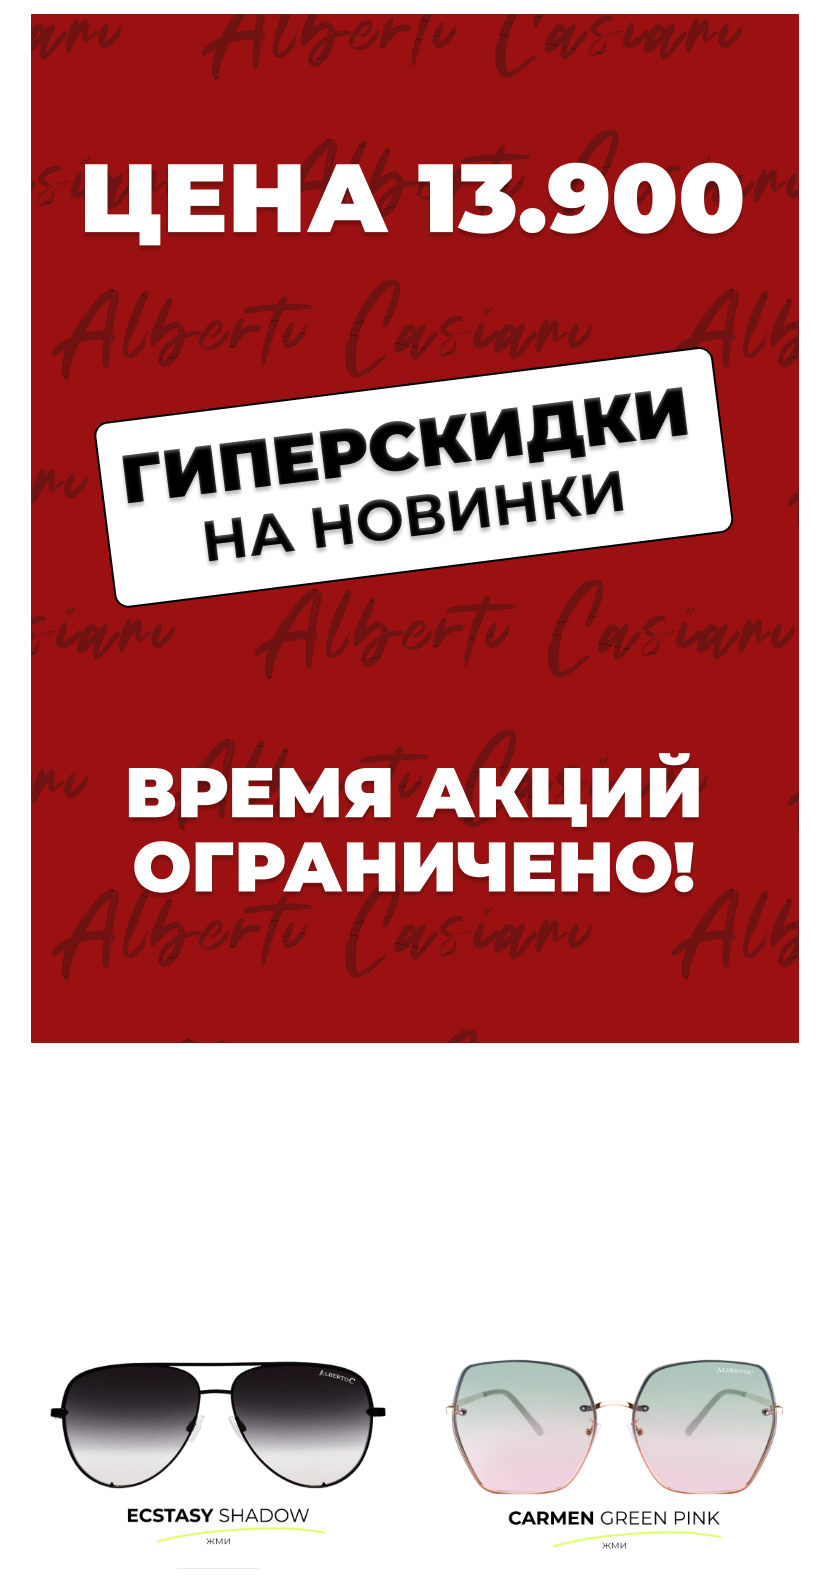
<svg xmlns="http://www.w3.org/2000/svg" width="830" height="1575">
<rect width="100%" height="100%" fill="#fff"/>
<image href="1.png" x="31" y="14" width="768" height="1029"/>
<image href="2.png" x="50" y="1361" width="336" height="208"/>
<image href="3.png" x="445" y="1359" width="339" height="190"/>
</svg>
